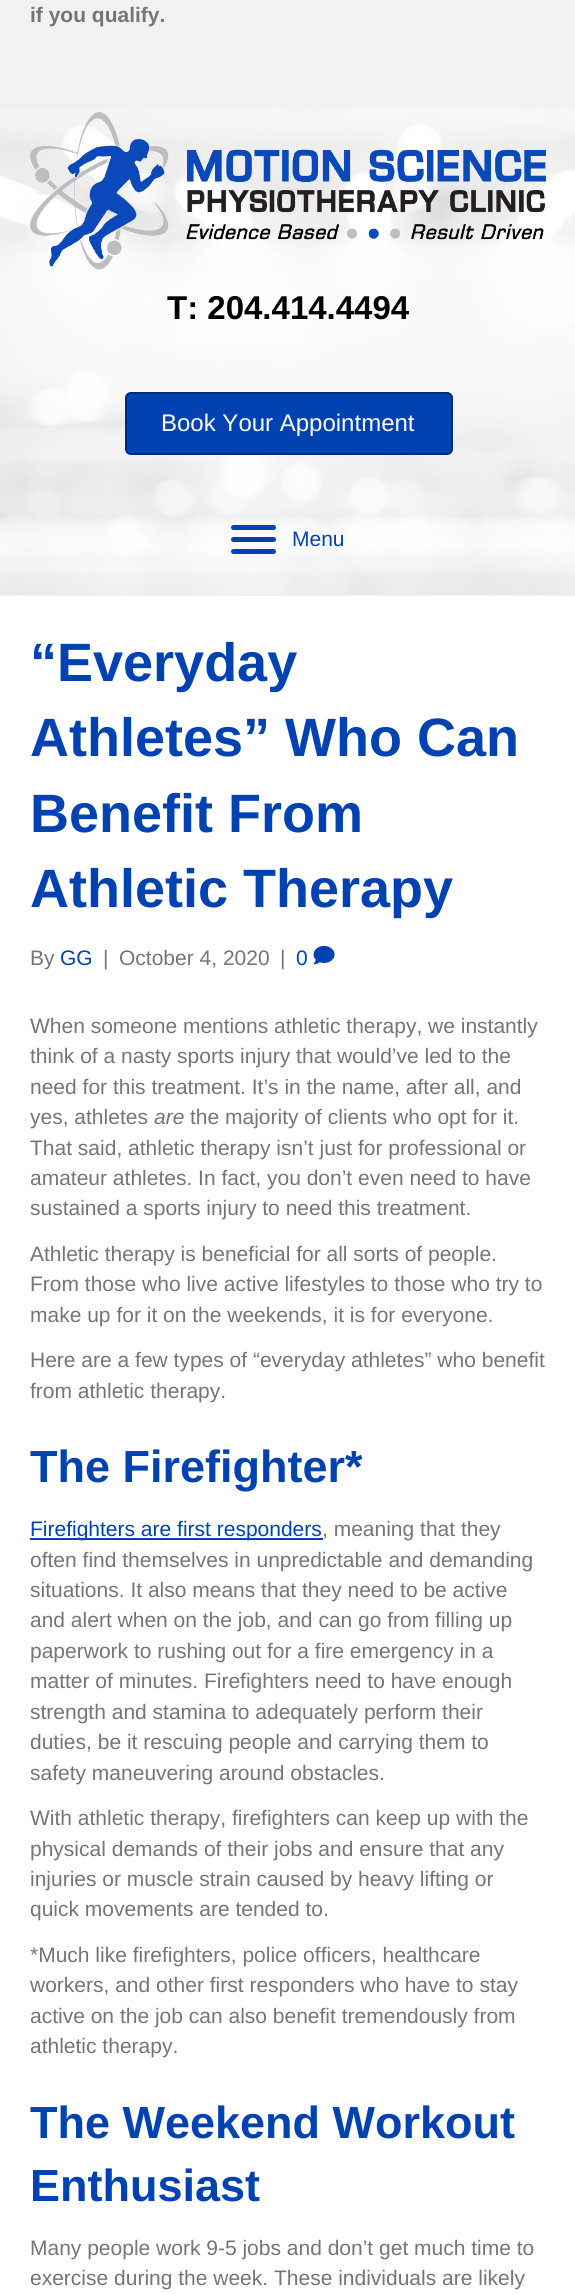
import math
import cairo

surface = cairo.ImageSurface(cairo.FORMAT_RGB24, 575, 2294)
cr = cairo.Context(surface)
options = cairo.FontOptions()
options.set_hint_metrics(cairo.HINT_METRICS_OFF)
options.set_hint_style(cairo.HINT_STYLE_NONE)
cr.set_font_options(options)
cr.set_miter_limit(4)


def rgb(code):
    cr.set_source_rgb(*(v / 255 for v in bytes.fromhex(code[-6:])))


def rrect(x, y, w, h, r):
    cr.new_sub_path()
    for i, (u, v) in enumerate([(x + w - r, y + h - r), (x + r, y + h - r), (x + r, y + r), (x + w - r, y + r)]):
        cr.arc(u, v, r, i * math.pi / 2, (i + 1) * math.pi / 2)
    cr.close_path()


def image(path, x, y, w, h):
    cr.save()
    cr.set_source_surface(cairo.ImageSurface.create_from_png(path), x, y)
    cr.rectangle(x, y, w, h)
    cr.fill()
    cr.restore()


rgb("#f2f2f2")
cr.paint()
image("img/1.png", 0, 104, 575, 491)
image("img/2.png", 30, 112, 516, 158)
rgb("#0042b2")
rrect(126, 393, 326, 61, 5)
cr.fill_preserve()
rgb("#002b75")
cr.stroke()
rgb("#0042b3")
rrect(231, 537, 45, 5, 2.5)
cr.fill()
rrect(231, 525, 45, 5, 2.5)
cr.fill()
rrect(231, 549, 45, 5, 2.5)
cr.fill()
rgb("#ffffff")
cr.rectangle(0, 596, 575, 1698)
cr.fill()
image("img/3.png", 313, 945, 22, 20)
rgb("#0042b2")
cr.rectangle(30, 1538, 293, 2)
cr.fill()
cr.select_font_face("Liberation Sans", cairo.FONT_SLANT_NORMAL, cairo.FONT_WEIGHT_BOLD)
cr.set_font_size(21)
rgb("#757575")
cr.move_to(30, 22)
cr.show_text("if you qualify.")
cr.set_font_size(33)
rgb("#000000")
cr.move_to(167, 319)
cr.show_text("T: 204.414.4494")
cr.select_font_face("Liberation Sans")
cr.set_font_size(24)
rgb("#ffffff")
cr.move_to(161, 431)
cr.show_text("Book Your Appointment")
cr.set_font_size(21)
rgb("#0042b2")
cr.move_to(292, 546)
cr.show_text("Menu")
cr.select_font_face("Liberation Sans", cairo.FONT_SLANT_NORMAL, cairo.FONT_WEIGHT_BOLD)
cr.set_font_size(54)
for x, y, s in [
    (30, 681, "“Everyday"),
    (30, 756, "Athletes” Who Can"),
    (30, 832, "Benefit From"),
    (30, 907, "Athletic Therapy"),
]:
    cr.move_to(x, y)
    cr.show_text(s)
cr.select_font_face("Liberation Sans")
cr.set_font_size(21)
rgb("#757575")
cr.move_to(30, 965)
cr.show_text("By")
rgb("#0042b2")
cr.move_to(60, 965)
cr.show_text("GG")
rgb("#757575")
for x, y, s in [
    (103, 965, "|"),
    (119, 965, "October 4, 2020"),
    (280, 965, "|"),
]:
    cr.move_to(x, y)
    cr.show_text(s)
rgb("#0042b2")
cr.move_to(296, 965)
cr.show_text("0")
rgb("#757575")
for x, y, s in [
    (30, 1033, "When someone mentions athletic therapy, we instantly"),
    (30, 1063, "think of a nasty sports injury that would’ve led to the"),
    (30, 1094, "need for this treatment. It’s in the name, after all, and"),
    (30, 1124, "yes, athletes"),
]:
    cr.move_to(x, y)
    cr.show_text(s)
cr.select_font_face("Liberation Sans", cairo.FONT_SLANT_ITALIC)
cr.move_to(154, 1124)
cr.show_text("are")
cr.select_font_face("Liberation Sans")
for x, y, s in [
    (190, 1124, "the majority of clients who opt for it."),
    (30, 1155, "That said, athletic therapy isn’t just for professional or"),
    (30, 1185, "amateur athletes. In fact, you don’t even need to have"),
    (30, 1215, "sustained a sports injury to need this treatment."),
    (30, 1261, "Athletic therapy is beneficial for all sorts of people."),
    (30, 1291, "From those who live active lifestyles to those who try to"),
    (30, 1322, "make up for it on the weekends, it is for everyone."),
    (30, 1367, "Here are a few types of “everyday athletes” who benefit"),
    (30, 1398, "from athletic therapy."),
]:
    cr.move_to(x, y)
    cr.show_text(s)
cr.select_font_face("Liberation Sans", cairo.FONT_SLANT_NORMAL, cairo.FONT_WEIGHT_BOLD)
cr.set_font_size(45)
rgb("#0042b2")
cr.move_to(30, 1482)
cr.show_text("The Firefighter*")
cr.select_font_face("Liberation Sans")
cr.set_font_size(21)
cr.move_to(30, 1536)
cr.show_text("Firefighters are first responders")
rgb("#757575")
for x, y, s in [
    (322, 1536, ", meaning that they"),
    (30, 1567, "often find themselves in unpredictable and demanding"),
    (30, 1597, "situations. It also means that they need to be active"),
    (30, 1627, "and alert when on the job, and can go from filling up"),
    (30, 1658, "paperwork to rushing out for a fire emergency in a"),
    (30, 1688, "matter of minutes. Firefighters need to have enough"),
    (30, 1719, "strength and stamina to adequately perform their"),
    (30, 1749, "duties, be it rescuing people and carrying them to"),
    (30, 1780, "safety maneuvering around obstacles."),
    (30, 1825, "With athletic therapy, firefighters can keep up with the"),
    (30, 1856, "physical demands of their jobs and ensure that any"),
    (30, 1886, "injuries or muscle strain caused by heavy lifting or"),
    (30, 1916, "quick movements are tended to."),
    (30, 1962, "*Much like firefighters, police officers, healthcare"),
    (30, 1992, "workers, and other first responders who have to stay"),
    (30, 2023, "active on the job can also benefit tremendously from"),
    (30, 2053, "athletic therapy."),
]:
    cr.move_to(x, y)
    cr.show_text(s)
cr.select_font_face("Liberation Sans", cairo.FONT_SLANT_NORMAL, cairo.FONT_WEIGHT_BOLD)
cr.set_font_size(45)
rgb("#0042b2")
cr.move_to(30, 2138)
cr.show_text("The Weekend Workout")
cr.move_to(30, 2201)
cr.show_text("Enthusiast")
cr.select_font_face("Liberation Sans")
cr.set_font_size(21)
rgb("#757575")
cr.move_to(30, 2255)
cr.show_text("Many people work 9-5 jobs and don’t get much time to")
cr.move_to(30, 2285)
cr.show_text("exercise during the week. These individuals are likely")
surface.write_to_png("page.png")
